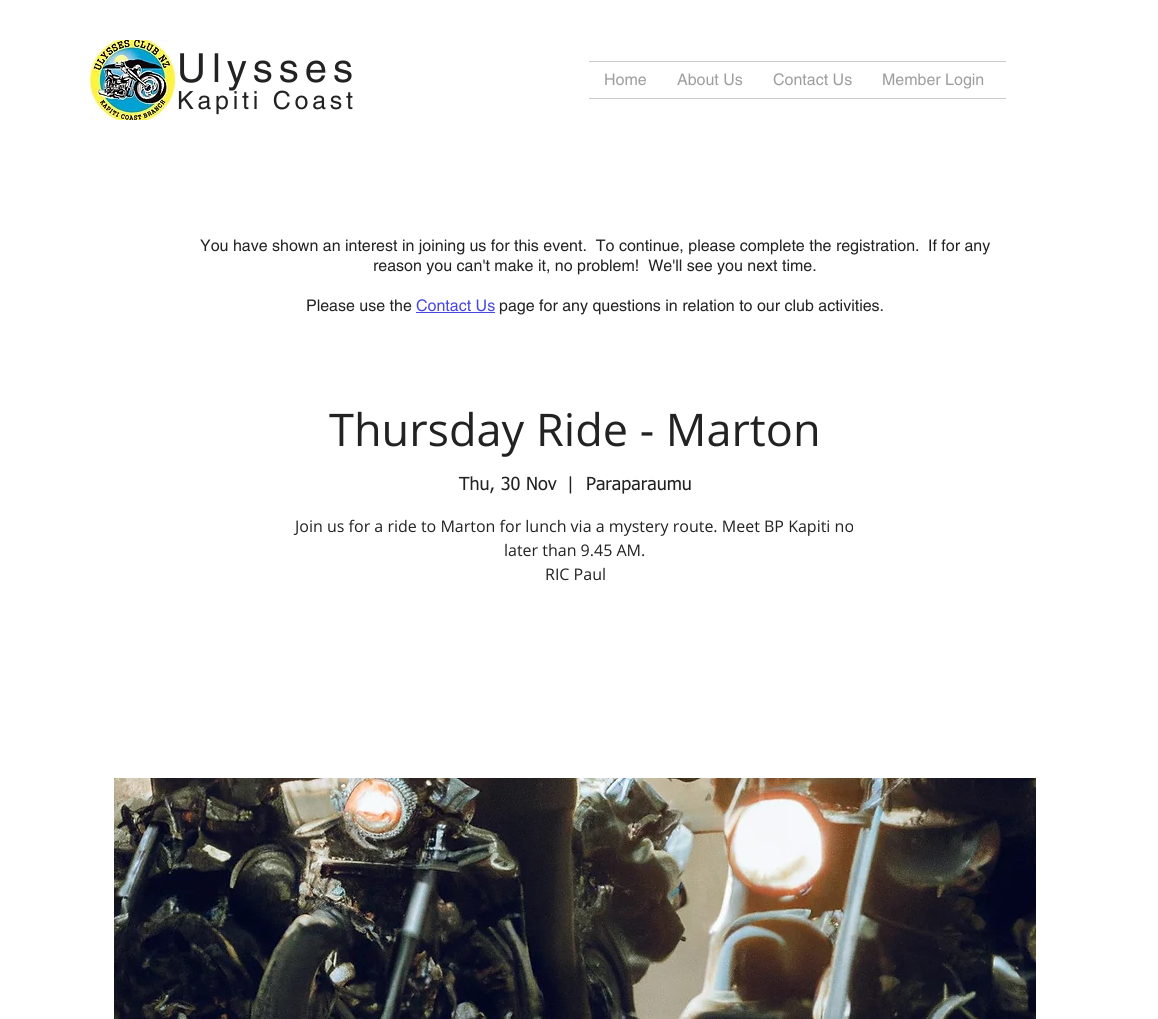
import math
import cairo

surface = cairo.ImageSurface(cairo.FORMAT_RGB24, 1158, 1019)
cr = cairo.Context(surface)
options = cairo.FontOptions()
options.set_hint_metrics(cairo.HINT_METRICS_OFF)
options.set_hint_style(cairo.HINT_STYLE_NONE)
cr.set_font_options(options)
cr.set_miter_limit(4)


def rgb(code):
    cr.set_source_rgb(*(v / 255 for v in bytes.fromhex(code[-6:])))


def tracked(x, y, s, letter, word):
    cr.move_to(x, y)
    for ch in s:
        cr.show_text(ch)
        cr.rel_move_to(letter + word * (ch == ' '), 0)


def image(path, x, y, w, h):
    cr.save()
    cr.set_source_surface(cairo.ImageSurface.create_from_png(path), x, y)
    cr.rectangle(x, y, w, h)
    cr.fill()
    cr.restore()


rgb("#ffffff")
cr.paint()
image("img/1.png", 89, 40, 87, 80)
for x, y, w, h, color in [
    (589, 61, 417, 1, "#cacaca"),
    (589, 98, 417, 1, "#cacaca"),
    (416, 312, 79, 1, "#4846e0"),
]:
    rgb(color)
    cr.rectangle(x, y, w, h)
    cr.fill()
image("img/2.png", 114, 778, 922, 241)
cr.select_font_face("helvetica")
cr.set_font_size(40)
rgb("#222222")
tracked(177, 82, "Ulysses", 6, 0)
cr.set_font_size(25)
tracked(177, 109, "Kapiti Coast", 3.75, 0)
cr.set_font_size(16)
rgb("#9e9e9e")
for x, y, s in [
    (604, 85, "Home"),
    (677, 85, "About Us"),
    (773, 85, "Contact Us"),
    (882, 85, "Member Login"),
]:
    cr.move_to(x, y)
    cr.show_text(s)
rgb("#222222")
for x, y, s in [
    (200, 251, "You have shown an interest in joining us for this event.  To continue, please complete the registration."),
    (928, 251, "If for any"),
    (373, 271, "reason you can't make it, no problem!  We'll see you next time."),
    (306, 311, "Please use the"),
]:
    cr.move_to(x, y)
    cr.show_text(s)
rgb("#4846e0")
cr.move_to(416, 311)
cr.show_text("Contact Us")
rgb("#222222")
cr.move_to(499, 311)
cr.show_text("page for any questions in relation to our club activities.")
cr.select_font_face("Open Sans")
cr.set_font_size(45)
cr.move_to(329, 446)
cr.show_text("Thursday Ride - Marton")
cr.select_font_face("tahoma")
cr.set_font_size(18)
for x, y, s in [
    (459, 490, "Thu, 30 Nov"),
    (567, 490, "|"),
    (586, 490, "Paraparaumu"),
]:
    cr.move_to(x, y)
    cr.show_text(s)
cr.select_font_face("Open Sans")
cr.set_font_size(16)
for x, y, s in [
    (295, 532, "Join us for a ride to Marton for lunch via a mystery route. Meet BP Kapiti no"),
    (504, 556, "later than 9.45 AM."),
    (545, 580, "RIC Paul"),
]:
    cr.move_to(x, y)
    cr.show_text(s)
surface.write_to_png("page.png")
